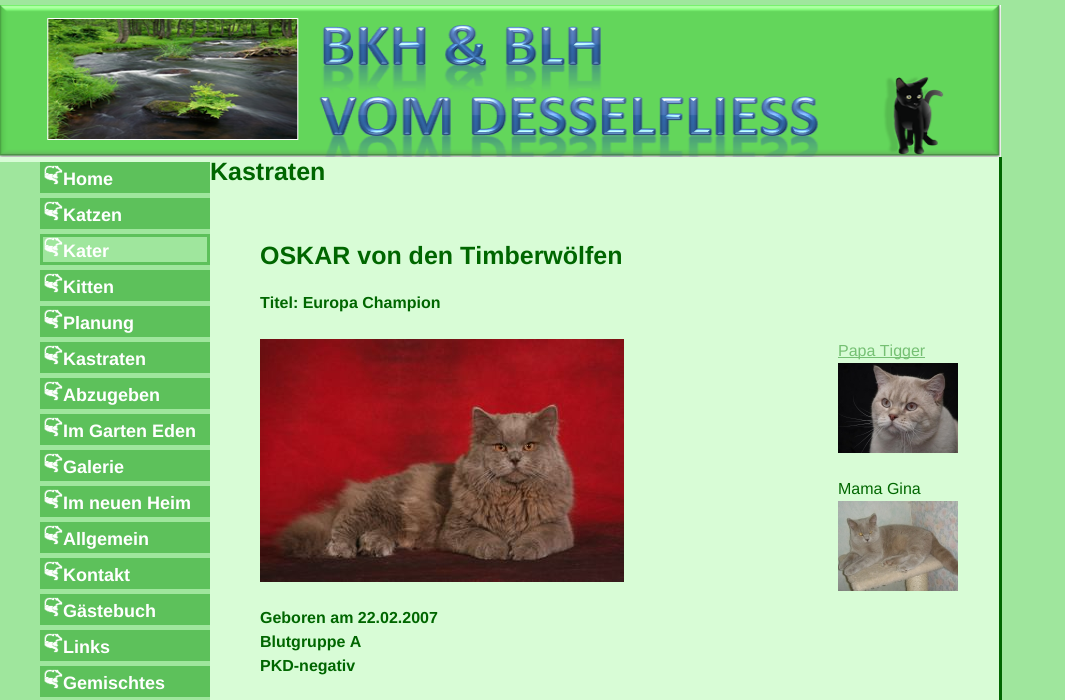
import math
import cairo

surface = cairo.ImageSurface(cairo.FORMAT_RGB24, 1065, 700)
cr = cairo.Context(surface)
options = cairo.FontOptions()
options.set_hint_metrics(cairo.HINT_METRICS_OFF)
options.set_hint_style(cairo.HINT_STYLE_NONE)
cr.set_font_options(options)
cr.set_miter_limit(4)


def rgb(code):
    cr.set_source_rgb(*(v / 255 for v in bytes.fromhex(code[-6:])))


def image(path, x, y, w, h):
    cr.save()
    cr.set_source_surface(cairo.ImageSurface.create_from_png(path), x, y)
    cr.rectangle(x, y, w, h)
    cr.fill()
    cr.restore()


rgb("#9fe69d")
cr.paint()
image("img/1.png", 0, 5, 1001, 152)
rgb("#d8fcd6")
cr.rectangle(0, 157, 210, 5)
cr.fill()
rgb("#5dc15b")
cr.rectangle(40, 162, 170, 31)
cr.fill()
image("img/2.png", 44, 165, 19, 20)
cr.rectangle(40, 198, 170, 31)
cr.fill()
image("img/2.png", 44, 201, 19, 20)
cr.rectangle(40, 234, 170, 31)
cr.fill()
rgb("#9fe69d")
cr.rectangle(43, 237, 164, 25)
cr.fill()
image("img/3.png", 44, 237, 19, 20)
rgb("#5dc15b")
cr.rectangle(40, 270, 170, 31)
cr.fill()
image("img/2.png", 44, 273, 19, 20)
cr.rectangle(40, 306, 170, 31)
cr.fill()
image("img/2.png", 44, 309, 19, 20)
cr.rectangle(40, 342, 170, 31)
cr.fill()
image("img/2.png", 44, 345, 19, 20)
cr.rectangle(40, 378, 170, 31)
cr.fill()
image("img/2.png", 44, 381, 19, 20)
cr.rectangle(40, 414, 170, 31)
cr.fill()
image("img/2.png", 44, 417, 19, 20)
cr.rectangle(40, 450, 170, 31)
cr.fill()
image("img/2.png", 44, 453, 19, 20)
cr.rectangle(40, 486, 170, 31)
cr.fill()
image("img/2.png", 44, 489, 19, 20)
cr.rectangle(40, 522, 170, 31)
cr.fill()
image("img/2.png", 44, 525, 19, 20)
cr.rectangle(40, 558, 170, 31)
cr.fill()
image("img/2.png", 44, 561, 19, 20)
cr.rectangle(40, 594, 170, 31)
cr.fill()
image("img/2.png", 44, 597, 19, 20)
cr.rectangle(40, 630, 170, 31)
cr.fill()
image("img/2.png", 44, 633, 19, 20)
cr.rectangle(40, 666, 170, 31)
cr.fill()
image("img/2.png", 44, 669, 19, 20)
rgb("#d8fcd6")
cr.rectangle(210, 157, 789, 543)
cr.fill()
rgb("#006600")
cr.rectangle(999, 157, 3, 543)
cr.fill()
image("img/4.png", 260, 339, 364, 243)
rgb("#75c073")
cr.rectangle(838, 357, 87, 1)
cr.fill()
image("img/5.png", 838, 363, 120, 90)
image("img/6.png", 838, 501, 120, 90)
cr.select_font_face("Liberation Sans", cairo.FONT_SLANT_NORMAL, cairo.FONT_WEIGHT_BOLD)
cr.set_font_size(18)
rgb("#ffffff")
for x, y, s in [
    (63, 185, "Home"),
    (63, 221, "Katzen"),
    (63, 257, "Kater"),
    (63, 293, "Kitten"),
    (63, 329, "Planung"),
    (63, 365, "Kastraten"),
    (63, 401, "Abzugeben"),
    (63, 437, "Im Garten Eden"),
    (63, 473, "Galerie"),
    (63, 509, "Im neuen Heim"),
    (63, 545, "Allgemein"),
    (63, 581, "Kontakt"),
    (63, 617, "Gästebuch"),
    (63, 653, "Links"),
    (63, 689, "Gemischtes"),
]:
    cr.move_to(x, y)
    cr.show_text(s)
cr.set_font_size(25)
rgb("#006600")
cr.move_to(210, 180)
cr.show_text("Kastraten")
cr.move_to(260, 264)
cr.show_text("OSKAR von den Timberwölfen")
cr.set_font_size(16)
for x, y, s in [
    (260, 308, "Titel: Europa Champion"),
    (260, 623, "Geboren am 22.02.2007"),
    (260, 647, "Blutgruppe A"),
    (260, 671, "PKD-negativ"),
]:
    cr.move_to(x, y)
    cr.show_text(s)
cr.select_font_face("Liberation Sans")
rgb("#75c073")
cr.move_to(838, 356)
cr.show_text("Papa Tigger")
rgb("#006600")
cr.move_to(838, 494)
cr.show_text("Mama Gina")
surface.write_to_png("page.png")
